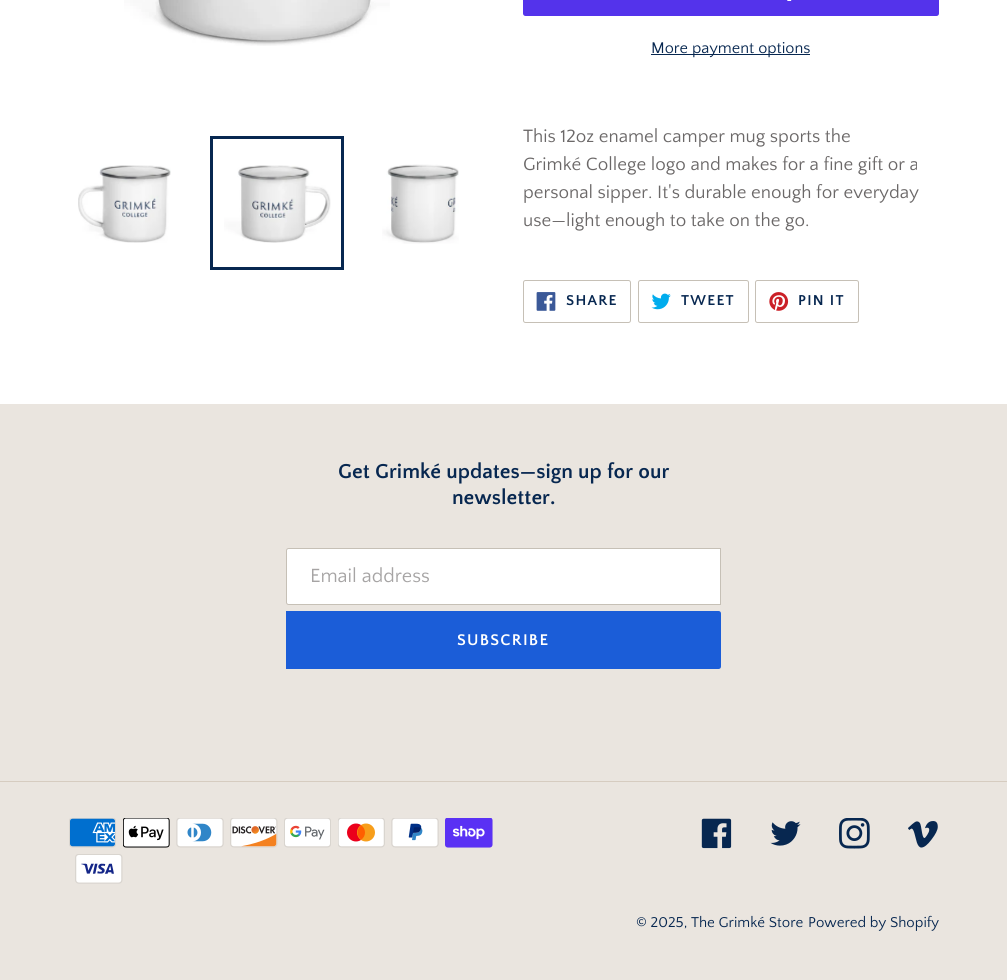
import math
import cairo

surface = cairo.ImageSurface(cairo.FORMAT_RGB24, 1007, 980)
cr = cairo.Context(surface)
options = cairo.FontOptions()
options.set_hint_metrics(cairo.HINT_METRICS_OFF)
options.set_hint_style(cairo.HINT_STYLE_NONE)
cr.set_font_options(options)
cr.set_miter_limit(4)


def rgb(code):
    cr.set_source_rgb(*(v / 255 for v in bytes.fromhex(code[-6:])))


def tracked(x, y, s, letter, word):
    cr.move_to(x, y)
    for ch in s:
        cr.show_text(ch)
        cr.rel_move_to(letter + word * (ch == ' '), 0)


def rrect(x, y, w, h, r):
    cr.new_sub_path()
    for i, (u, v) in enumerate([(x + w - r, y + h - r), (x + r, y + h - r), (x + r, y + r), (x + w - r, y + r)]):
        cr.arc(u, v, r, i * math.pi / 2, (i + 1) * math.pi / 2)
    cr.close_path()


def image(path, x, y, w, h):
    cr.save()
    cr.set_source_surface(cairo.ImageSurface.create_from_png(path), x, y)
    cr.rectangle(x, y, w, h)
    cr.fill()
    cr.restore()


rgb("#ffffff")
cr.paint()
image("img/1.png", 124, 0, 266, 46)
image("img/2.png", 78, 165, 93, 78)
cr.rectangle(211.5, 137.5, 131, 131)
rgb("#072750")
cr.set_line_width(3)
cr.stroke()
image("img/3.png", 224, 165, 107, 78)
image("img/4.png", 382, 164, 77, 80)
rgb("#5433eb")
rrect(523, -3, 416, 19, 2.5)
cr.fill()
image("img/5.png", 787, 0, 5, 1)
rgb("#072750")
cr.rectangle(651, 54, 159, 1)
cr.fill()
rrect(523.5, 280.5, 107, 42, 2)
rgb("#c6c0b6")
cr.set_line_width(1)
cr.stroke()
image("img/6.png", 536, 292, 20, 19)
rrect(638.5, 280.5, 110, 42, 2)
cr.stroke()
image("img/7.png", 651, 293, 20, 17)
rrect(755.5, 280.5, 103, 42, 2)
cr.stroke()
image("img/8.png", 769, 292, 20, 19)
rgb("#eae5df")
cr.rectangle(0, 404, 1007, 576)
cr.fill()
rgb("#ffffff")
cr.new_path()
cr.move_to(288.5, 548.5)
cr.line_to(720.5, 548.5)
cr.line_to(720.5, 604.5)
cr.line_to(288.5, 604.5)
cr.curve_to(287.5, 604.5, 286.5, 603.5, 286.5, 602.5)
cr.line_to(286.5, 550.5)
cr.curve_to(286.5, 549.5, 287.5, 548.5, 288.5, 548.5)
cr.close_path()
cr.fill_preserve()
rgb("#c6c0b6")
cr.stroke()
rgb("#1b5dd8")
cr.new_path()
cr.move_to(286, 611)
cr.line_to(718.5, 611)
cr.curve_to(720, 611, 721, 612, 721, 613.5)
cr.line_to(721, 666.5)
cr.curve_to(721, 668, 720, 669, 718.5, 669)
cr.line_to(286, 669)
cr.close_path()
cr.fill()
rgb("#d6ccc0")
cr.rectangle(0, 781, 1007, 1)
cr.fill()
image("img/9.png", 69, 818, 47, 30)
image("img/10.png", 123, 818, 47, 30)
image("img/11.png", 176, 818, 48, 30)
image("img/12.png", 230, 818, 48, 30)
image("img/13.png", 284, 818, 47, 30)
image("img/14.png", 338, 818, 47, 30)
image("img/15.png", 391, 818, 48, 30)
image("img/16.png", 445, 818, 48, 30)
image("img/17.png", 75, 854, 48, 30)
image("img/18.png", 701, 818, 31, 31)
image("img/19.png", 770, 821, 31, 25)
image("img/20.png", 839, 818, 31, 31)
image("img/21.png", 908, 821, 30, 27)
cr.select_font_face("Quattrocento Sans")
cr.set_font_size(16.25)
rgb("#072750")
cr.move_to(651, 53)
cr.show_text("More payment options")
cr.set_font_size(18.75)
rgb("#6b6868")
for x, y, s in [
    (523, 142, "This 12oz enamel camper mug sports the"),
    (523, 170, "Grimké College logo and makes for a fine gift or a"),
    (523, 198, "personal sipper. It's durable enough for everyday"),
    (523, 226, "use—light enough to take on the go."),
]:
    cr.move_to(x, y)
    cr.show_text(s)
cr.select_font_face("Quattrocento Sans", cairo.FONT_SLANT_NORMAL, cairo.FONT_WEIGHT_BOLD)
cr.set_font_size(15)
rgb("#072750")
for x, y, s in [
    (566, 305, "SHARE"),
    (681, 305, "TWEET"),
    (798, 305, "PIN IT"),
]:
    tracked(x, y, s, 1.25, 0)
cr.set_font_size(21.25)
cr.move_to(338, 478)
cr.show_text("Get Grimké updates—sign up for our")
cr.move_to(452, 504)
cr.show_text("newsletter.")
cr.select_font_face("Quattrocento Sans")
cr.set_font_size(20)
rgb("#a6a4a4")
cr.move_to(310, 582)
cr.show_text("Email address")
cr.select_font_face("Quattrocento Sans", cairo.FONT_SLANT_NORMAL, cairo.FONT_WEIGHT_BOLD)
cr.set_font_size(16.25)
rgb("#ffffff")
tracked(457, 645, "SUBSCRIBE", 1.25, 0)
cr.select_font_face("Quattrocento Sans")
cr.set_font_size(15)
rgb("#072750")
cr.move_to(636, 927)
cr.show_text("© 2025, The Grimké Store")
cr.move_to(808, 927)
cr.show_text("Powered by Shopify")
surface.write_to_png("page.png")
